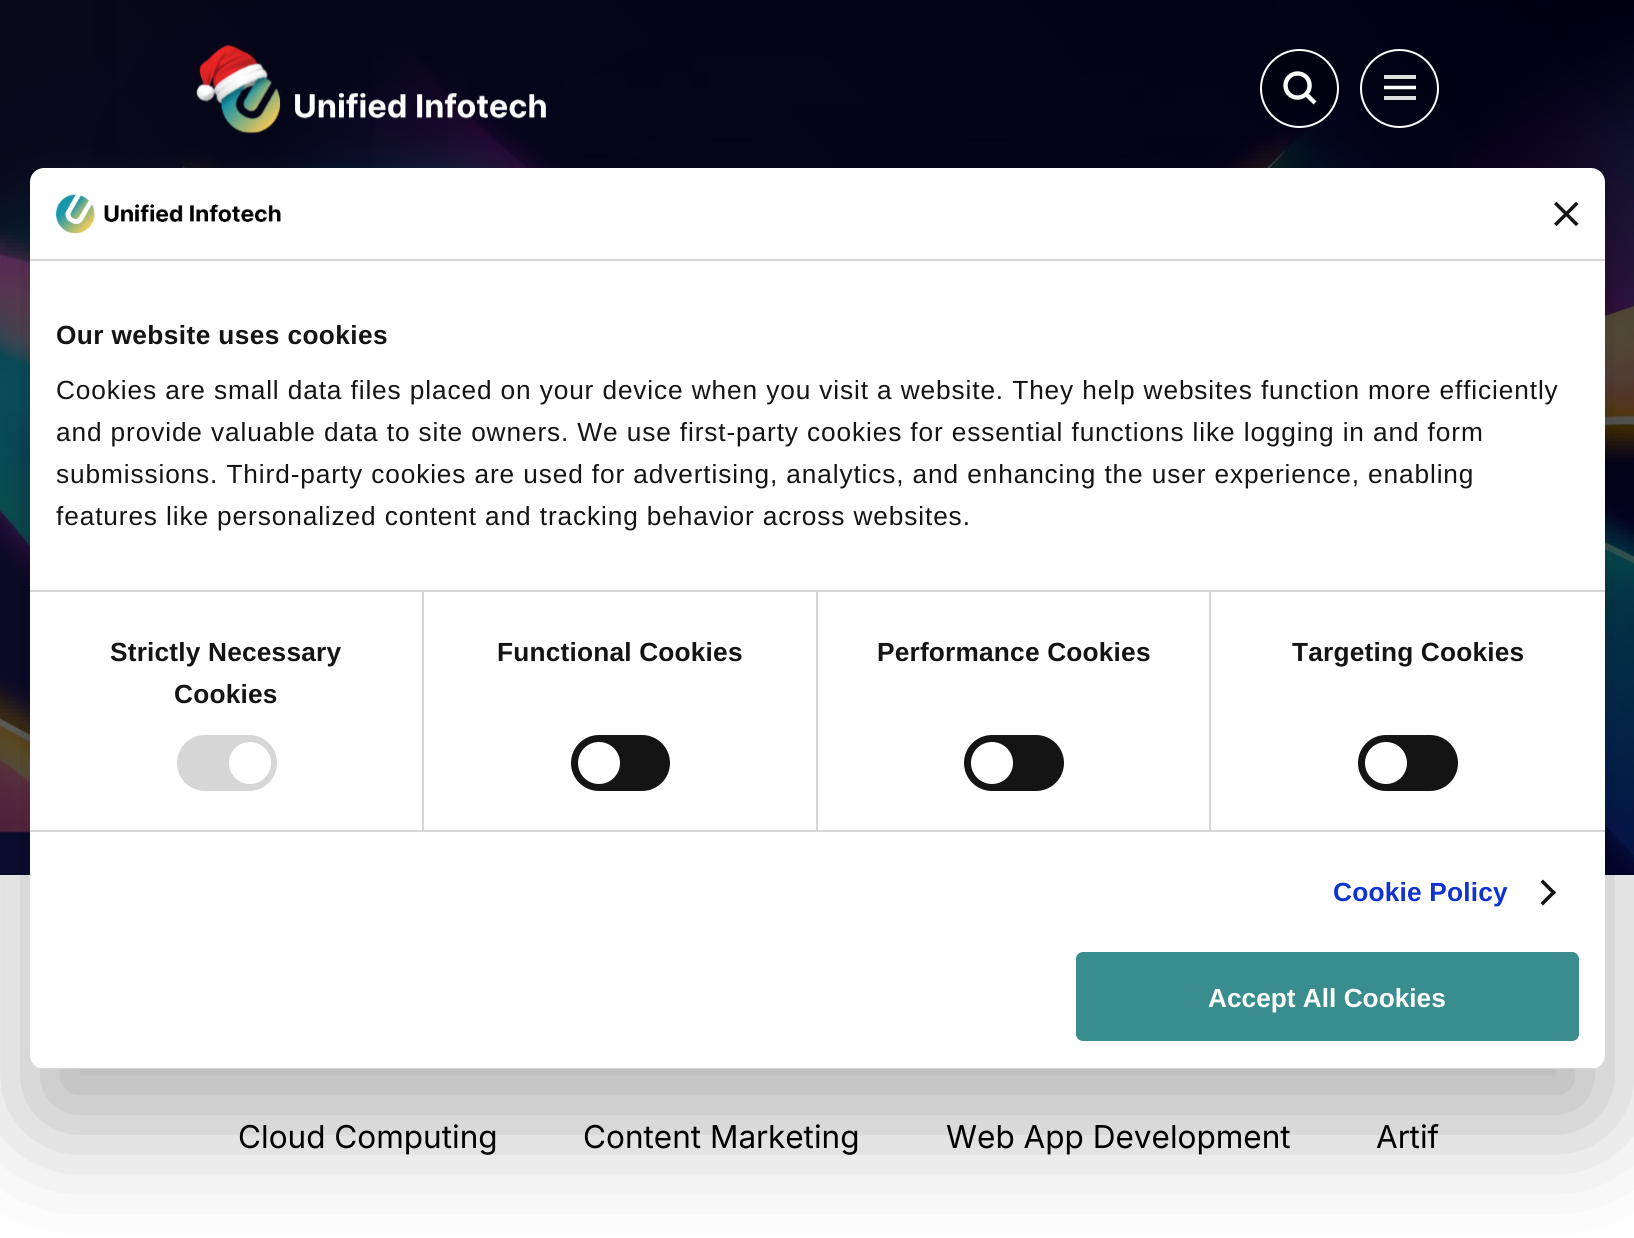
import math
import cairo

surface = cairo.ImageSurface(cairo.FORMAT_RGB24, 1634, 1238)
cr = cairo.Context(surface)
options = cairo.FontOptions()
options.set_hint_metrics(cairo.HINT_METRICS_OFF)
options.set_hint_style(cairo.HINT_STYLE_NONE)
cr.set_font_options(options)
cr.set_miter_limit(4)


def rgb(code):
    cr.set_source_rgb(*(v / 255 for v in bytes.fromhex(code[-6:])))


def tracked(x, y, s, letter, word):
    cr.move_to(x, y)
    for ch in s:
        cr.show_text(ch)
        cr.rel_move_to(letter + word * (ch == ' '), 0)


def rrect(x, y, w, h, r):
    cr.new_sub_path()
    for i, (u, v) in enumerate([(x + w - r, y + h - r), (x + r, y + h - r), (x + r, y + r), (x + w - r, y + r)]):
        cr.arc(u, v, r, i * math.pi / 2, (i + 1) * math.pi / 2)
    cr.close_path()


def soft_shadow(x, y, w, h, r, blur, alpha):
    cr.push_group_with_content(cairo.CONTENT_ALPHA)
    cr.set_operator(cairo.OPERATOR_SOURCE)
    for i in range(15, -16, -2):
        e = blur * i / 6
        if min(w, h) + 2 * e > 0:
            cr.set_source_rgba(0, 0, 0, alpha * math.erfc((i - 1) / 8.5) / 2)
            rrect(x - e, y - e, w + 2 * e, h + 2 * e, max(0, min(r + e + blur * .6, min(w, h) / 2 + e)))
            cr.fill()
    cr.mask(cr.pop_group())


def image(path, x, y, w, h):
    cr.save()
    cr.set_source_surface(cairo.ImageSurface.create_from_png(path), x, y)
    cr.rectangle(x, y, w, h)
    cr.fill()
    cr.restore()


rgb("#ffffff")
cr.paint()
gradient = cairo.LinearGradient(122, 1021, 1512, -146)
gradient.add_color_stop_rgba(0, 0.114, 0.114, 0.114, 1)
gradient.add_color_stop_rgba(1, 0, 0, 0, 1)
cr.set_source(gradient)
cr.rectangle(0, 0, 1634, 875)
cr.fill()
gradient = cairo.RadialGradient(817, 438, 0, 817, 438, 927)
gradient.add_color_stop_rgba(0, 0, 0, 0, 0.5)
gradient.add_color_stop_rgba(1, 0, 0, 0, 0)
cr.set_source(gradient)
cr.rectangle(93, 0, 1183, 838)
cr.fill()
gradient = cairo.LinearGradient(0, 438, 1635, 437)
gradient.add_color_stop_rgba(0, 0, 0, 0, 0.15)
gradient.add_color_stop_rgba(1, 0, 0, 0, 0)
cr.set_source(gradient)
cr.rectangle(0, 0, 448, 875)
cr.fill()
image("img/3.png", 0, 0, 1634, 875)
image("img/4.png", 196, 44, 350, 90)
cr.set_source_rgba(0, 0, 0, 0.26)
cr.arc(1299.5, 88.5, 38.5, 0, 2 * math.pi)
cr.fill_preserve()
rgb("#ffffff")
cr.stroke()
image("img/5.png", 1283, 71, 34, 34)
cr.arc(1399.5, 88.5, 38.5, 0, 2 * math.pi)
cr.stroke()
rgb("#dfdfe2")
cr.rectangle(1384, 75, 32, 4)
cr.fill()
cr.new_path()
cr.move_to(1384, 87.5)
cr.line_to(1416, 87.5)
rgb("#ffffff")
cr.set_line_width(3.5)
cr.stroke()
rgb("#dfdfe2")
cr.rectangle(1384, 96, 32, 4)
cr.fill()
rgb("#000000")
soft_shadow(30, 224, 1575, 901, 14, 59.5, 0.3)
rgb("#ffffff")
rrect(30, 168, 1575, 901, 14)
cr.fill()
rgb("#d6d6d6")
cr.rectangle(30, 259, 1575, 2)
cr.fill()
image("img/1.png", 56, 194, 225, 40)
image("img/2.png", 1554, 201, 25, 25)
for x, y, w, h, color in [
    (30, 590, 1575, 2, "#d6d6d6"),
    (30, 830, 1575, 2, "#d6d6d6"),
    (422, 592, 2, 238, "#d6d6d6"),
]:
    rgb(color)
    cr.rectangle(x, y, w, h)
    cr.fill()
rrect(177, 735, 100, 56, 28)
cr.fill()
rgb("#ffffff")
cr.arc(250, 763, 21, 0, 2 * math.pi)
cr.fill()
rgb("#d6d6d6")
cr.rectangle(816, 592, 2, 238)
cr.fill()
rgb("#141414")
rrect(571, 735, 99, 56, 28)
cr.fill()
rgb("#ffffff")
cr.arc(599, 763, 21, 0, 2 * math.pi)
cr.fill()
rgb("#d6d6d6")
cr.rectangle(1209, 592, 2, 238)
cr.fill()
rgb("#141414")
rrect(964, 735, 100, 56, 28)
cr.fill()
rgb("#ffffff")
cr.arc(992, 763, 21, 0, 2 * math.pi)
cr.fill()
rgb("#141414")
rrect(1358, 735, 100, 56, 28)
cr.fill()
rgb("#ffffff")
cr.arc(1386, 763, 21, 0, 2 * math.pi)
cr.fill()
rgb("#141414")
cr.new_path()
cr.move_to(1543, 879.5)
cr.line_to(1556, 892.5)
cr.line_to(1553.5, 895)
cr.line_to(1540.5, 882)
cr.close_path()
cr.fill()
cr.new_path()
cr.move_to(1553.5, 890)
cr.line_to(1556, 892.5)
cr.line_to(1543, 905.5)
cr.line_to(1540.5, 903)
cr.close_path()
cr.fill()
cr.save()
rrect(30, 168, 1575, 901, 14)
cr.clip()
rgb("#d6d6d6")
cr.rectangle(39, 1068, 1557, 1)
cr.fill()
cr.restore()
rgb("#398d8e")
rrect(1078, 954, 499, 85, 5)
cr.fill_preserve()
cr.set_line_width(4)
cr.stroke()
cr.select_font_face("Liberation Sans", cairo.FONT_SLANT_NORMAL, cairo.FONT_WEIGHT_BOLD)
cr.set_font_size(26.25)
rgb("#141414")
tracked(56, 344, "Our website uses cookies", 0.4, 0)
cr.select_font_face("Liberation Sans")
for x, y, s in [
    (56, 399, "Cookies are small data files placed on your device when you visit a website. They help websites function more efficiently"),
    (56, 441, "and provide valuable data to site owners. We use first-party cookies for essential functions like logging in and form"),
    (56, 483, "submissions. Third-party cookies are used for advertising, analytics, and enhancing the user experience, enabling"),
    (56, 525, "features like personalized content and tracking behavior across websites."),
]:
    tracked(x, y, s, 0.88, 0)
cr.select_font_face("Liberation Sans", cairo.FONT_SLANT_NORMAL, cairo.FONT_WEIGHT_BOLD)
for x, y, s in [
    (110, 661, "Strictly Necessary"),
    (174, 703, "Cookies"),
    (497, 661, "Functional Cookies"),
    (877, 661, "Performance Cookies"),
    (1292, 661, "Targeting Cookies"),
]:
    tracked(x, y, s, 0.2, 0)
rgb("#1032cf")
tracked(1333, 901, "Cookie Policy", 0.2, 0)
rgb("#ffffff")
cr.move_to(1208, 1007)
cr.show_text("Accept All Cookies")
cr.select_font_face("Inter")
cr.set_font_size(31.5)
rgb("#000000")
for x, y, s in [
    (238, 1148, "Cloud Computing"),
    (583, 1148, "Content Marketing"),
    (946, 1148, "Web App Development"),
    (1376, 1148, "Artif"),
]:
    cr.move_to(x, y)
    cr.show_text(s)
surface.write_to_png("page.png")
